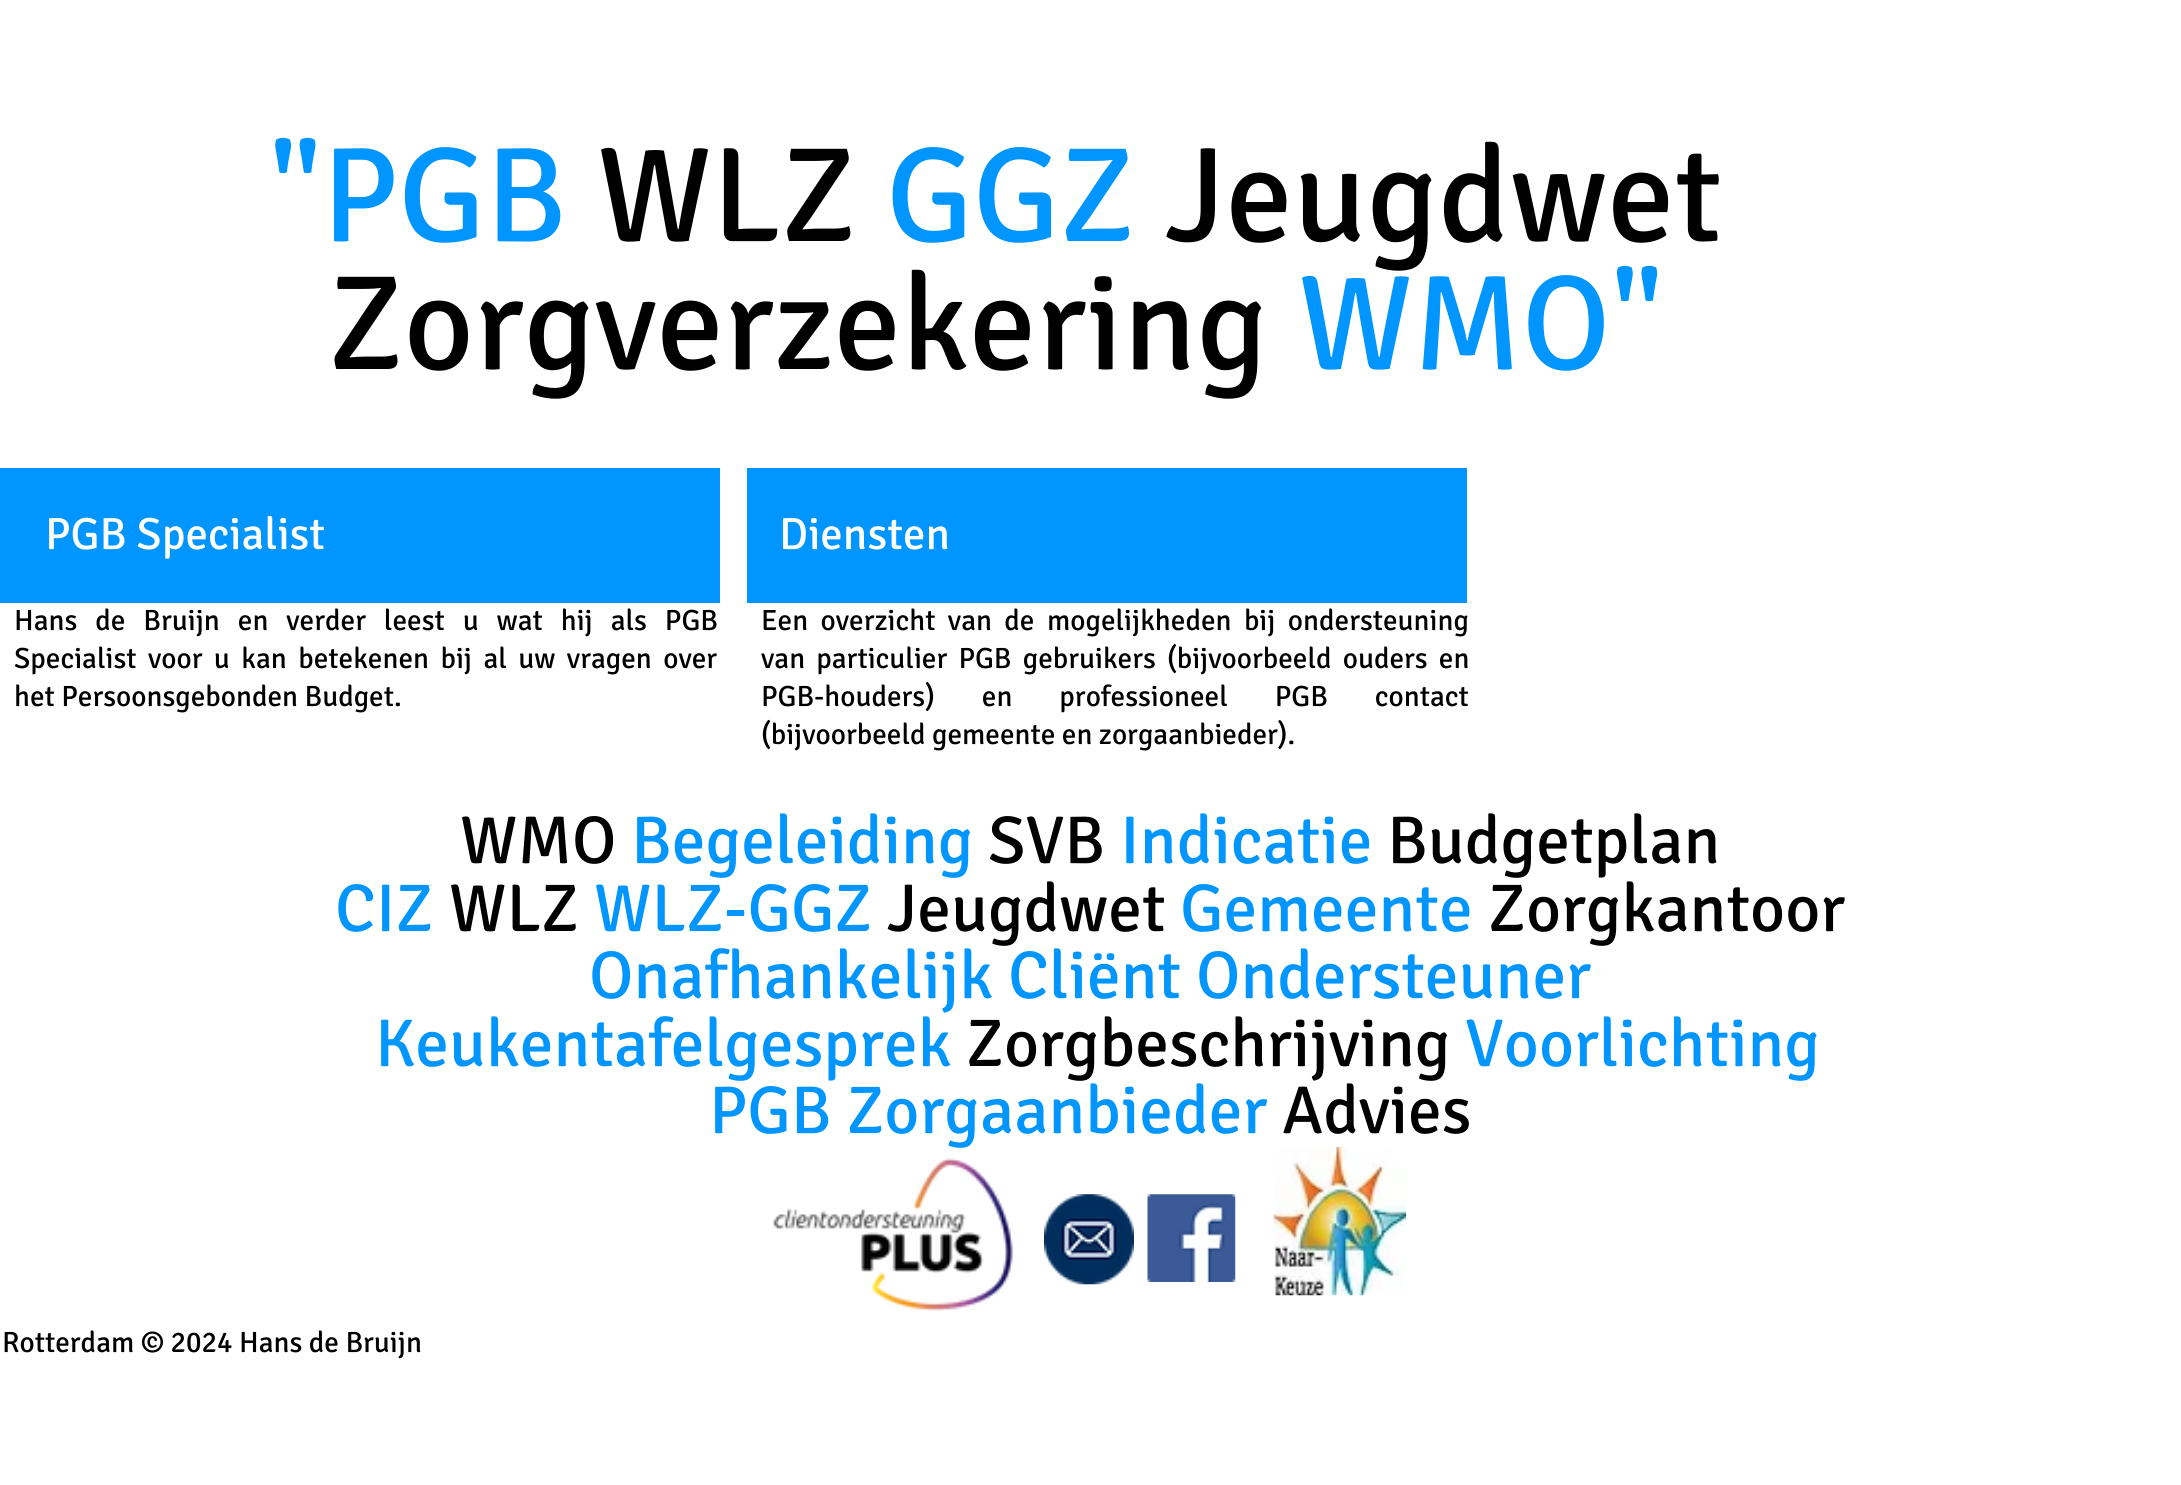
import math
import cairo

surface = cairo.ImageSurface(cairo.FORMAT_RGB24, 2181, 1485)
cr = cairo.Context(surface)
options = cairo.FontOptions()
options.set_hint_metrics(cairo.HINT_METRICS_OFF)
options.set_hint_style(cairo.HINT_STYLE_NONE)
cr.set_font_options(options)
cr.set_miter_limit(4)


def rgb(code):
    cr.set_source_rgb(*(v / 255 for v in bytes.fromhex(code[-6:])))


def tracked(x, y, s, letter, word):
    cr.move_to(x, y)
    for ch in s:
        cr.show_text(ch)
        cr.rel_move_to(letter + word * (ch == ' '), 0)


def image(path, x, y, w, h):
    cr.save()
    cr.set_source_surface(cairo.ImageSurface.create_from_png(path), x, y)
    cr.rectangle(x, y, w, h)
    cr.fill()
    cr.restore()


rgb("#ffffff")
cr.paint()
rgb("#0095ff")
cr.rectangle(0, 468, 720, 135)
cr.fill()
cr.rectangle(747, 468, 720, 135)
cr.fill()
image("img/1.png", 773, 1157, 241, 155)
image("img/2.png", 1044, 1194, 90, 91)
image("img/3.png", 1147, 1194, 89, 88)
image("img/4.png", 1273, 1147, 134, 149)
cr.select_font_face("Signika")
cr.set_font_size(135)
cr.move_to(269, 241)
cr.show_text("\"PGB")
rgb("#000000")
cr.move_to(597, 241)
cr.show_text("WLZ")
rgb("#0095ff")
cr.move_to(886, 241)
cr.show_text("GGZ")
rgb("#000000")
cr.move_to(1165, 241)
cr.show_text("Jeugdwet")
cr.move_to(328, 369)
cr.show_text("Zorgverzekering")
rgb("#0095ff")
cr.move_to(1298, 369)
cr.show_text("WMO\"")
cr.set_font_size(45)
rgb("#ffffff")
cr.move_to(45, 549)
cr.show_text("PGB Specialist")
cr.move_to(779, 549)
cr.show_text("Diensten")
cr.set_font_size(29.25)
rgb("#000000")
tracked(14, 630, "Hans de Bruijn en verder leest u wat hij als PGB", 0, 11.5)
tracked(14, 668, "Specialist voor u kan betekenen bij al uw vragen over", 0, 5)
cr.move_to(14, 706)
cr.show_text("het Persoonsgebonden Budget.")
tracked(761, 630, "Een overzicht van de mogelijkheden bij ondersteuning", 0, 6)
tracked(761, 668, "van particulier PGB gebruikers (bijvoorbeeld ouders en", 0, 4.75)
tracked(761, 706, "PGB-houders) en professioneel PGB contact", 0, 40.5)
cr.move_to(761, 744)
cr.show_text("(bijvoorbeeld gemeente en zorgaanbieder).")
cr.set_font_size(67.5)
cr.move_to(460, 863)
cr.show_text("WMO")
rgb("#0095ff")
cr.move_to(631, 863)
cr.show_text("Begeleiding")
rgb("#000000")
cr.move_to(988, 863)
cr.show_text("SVB")
rgb("#0095ff")
cr.move_to(1120, 863)
cr.show_text("Indicatie")
rgb("#000000")
cr.move_to(1387, 863)
cr.show_text("Budgetplan")
rgb("#0095ff")
cr.move_to(335, 931)
cr.show_text("CIZ")
rgb("#000000")
cr.move_to(449, 931)
cr.show_text("WLZ")
rgb("#0095ff")
cr.move_to(594, 931)
cr.show_text("WLZ-GGZ")
rgb("#000000")
cr.move_to(887, 931)
cr.show_text("Jeugdwet")
rgb("#0095ff")
cr.move_to(1180, 931)
cr.show_text("Gemeente")
rgb("#000000")
cr.move_to(1488, 931)
cr.show_text("Zorgkantoor")
rgb("#0095ff")
cr.move_to(589, 998)
cr.show_text("Onafhankelijk Cliënt Ondersteuner")
cr.move_to(375, 1066)
cr.show_text("Keukentafelgesprek")
rgb("#000000")
cr.move_to(966, 1066)
cr.show_text("Zorgbeschrijving")
rgb("#0095ff")
cr.move_to(1465, 1066)
cr.show_text("Voorlichting")
cr.move_to(709, 1133)
cr.show_text("PGB Zorgaanbieder")
rgb("#000000")
cr.move_to(1282, 1133)
cr.show_text("Advies")
cr.set_font_size(29.25)
cr.move_to(2, 1352)
cr.show_text("Rotterdam © 2024 Hans de Bruijn")
surface.write_to_png("page.png")
